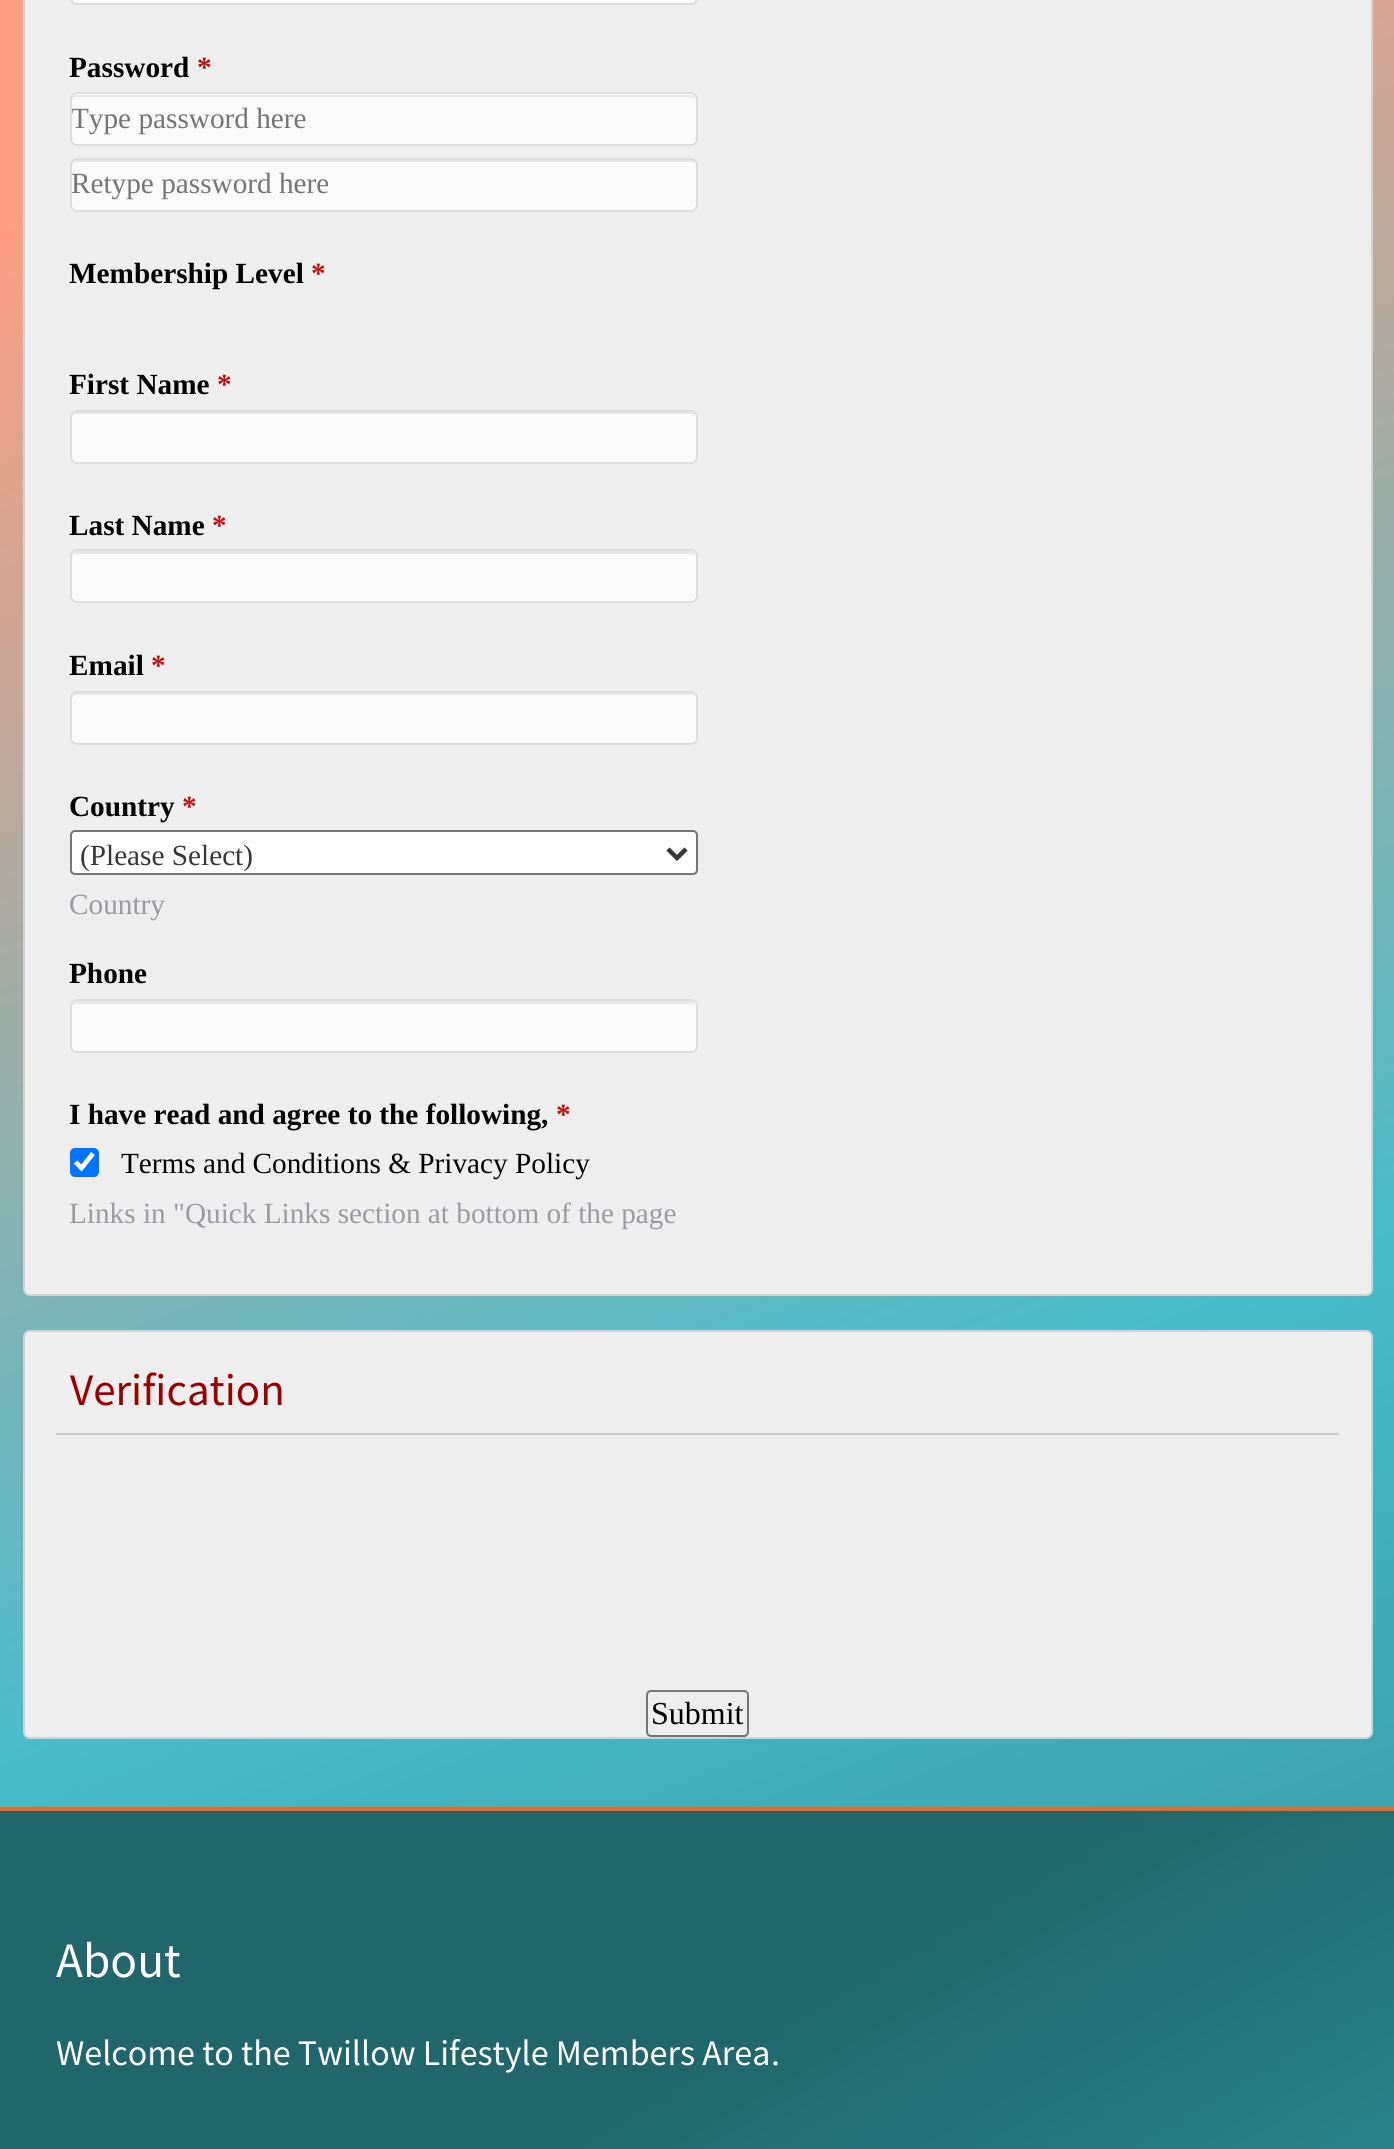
import math
import cairo

surface = cairo.ImageSurface(cairo.FORMAT_RGB24, 1394, 2149)
cr = cairo.Context(surface)
options = cairo.FontOptions()
options.set_hint_metrics(cairo.HINT_METRICS_OFF)
options.set_hint_style(cairo.HINT_STYLE_NONE)
cr.set_font_options(options)
cr.set_miter_limit(4)


def rgb(code):
    cr.set_source_rgb(*(v / 255 for v in bytes.fromhex(code[-6:])))


def rrect(x, y, w, h, r):
    cr.new_sub_path()
    for i, (u, v) in enumerate([(x + w - r, y + h - r), (x + r, y + h - r), (x + r, y + r), (x + w - r, y + r)]):
        cr.arc(u, v, r, i * math.pi / 2, (i + 1) * math.pi / 2)
    cr.close_path()


rgb("#ffffff")
cr.paint()
gradient = cairo.LinearGradient(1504, 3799, -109, -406)
gradient.add_color_stop_rgba(0.15, 0.125, 0.4, 0.416, 1)
gradient.add_color_stop_rgba(0.54, 0.278, 0.741, 0.796, 1)
gradient.add_color_stop_rgba(0.86, 0.996, 0.62, 0.514, 1)
cr.set_source(gradient)
cr.rectangle(0, 0, 1394, 1807)
cr.fill()
rgb("#eeeeee")
rrect(24, -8, 1348, 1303, 6)
cr.fill_preserve()
rgb("#d3d3d3")
cr.stroke()
rgb("#fafafa")
rrect(71, -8, 626, 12, 6)
cr.fill_preserve()
rgb("#dddddd")
cr.stroke()
rgb("#fafafa")
rrect(70, 92, 628, 54, 7)
cr.fill()
rgb("#e7e7e7")
cr.new_path()
cr.move_to(76, 97)
cr.line_to(691, 97)
cr.curve_to(693, 97, 695, 99, 695, 101)
cr.line_to(695, 100)
cr.curve_to(695, 97, 693, 95, 690, 95)
cr.line_to(77, 95)
cr.curve_to(74, 95, 72, 97, 72, 100)
cr.line_to(72, 101)
cr.curve_to(72, 99, 74, 97, 76, 97)
cr.close_path()
cr.fill()
rrect(71, 93, 626, 52, 6)
rgb("#dddddd")
cr.stroke()
rgb("#fafafa")
rrect(70, 158, 628, 54, 7)
cr.fill()
rgb("#e7e7e7")
cr.new_path()
cr.move_to(76, 162)
cr.line_to(691, 162)
cr.curve_to(693, 162, 695, 164, 695, 166)
cr.line_to(695, 165)
cr.curve_to(695, 162, 693, 160, 690, 160)
cr.line_to(77, 160)
cr.curve_to(74, 160, 72, 162, 72, 165)
cr.line_to(72, 166)
cr.curve_to(72, 164, 74, 162, 76, 162)
cr.close_path()
cr.fill()
rrect(71, 159, 626, 52, 6)
rgb("#dddddd")
cr.stroke()
rgb("#fafafa")
rrect(70, 410, 628, 54, 7)
cr.fill()
rgb("#e7e7e7")
cr.new_path()
cr.move_to(76, 414)
cr.line_to(691, 414)
cr.curve_to(693, 414, 695, 416, 695, 418)
cr.line_to(695, 417)
cr.curve_to(695, 414, 693, 412, 690, 412)
cr.line_to(77, 412)
cr.curve_to(74, 412, 72, 414, 72, 417)
cr.line_to(72, 418)
cr.curve_to(72, 416, 74, 414, 76, 414)
cr.close_path()
cr.fill()
rrect(71, 411, 626, 52, 6)
rgb("#dddddd")
cr.stroke()
rgb("#fafafa")
rrect(70, 549, 628, 54, 7)
cr.fill()
rgb("#e7e7e7")
cr.new_path()
cr.move_to(76, 554)
cr.line_to(691, 554)
cr.curve_to(693, 554, 695, 556, 695, 558)
cr.curve_to(695, 555, 694, 551, 690, 551)
cr.line_to(77, 551)
cr.curve_to(73, 551, 72, 555, 72, 558)
cr.curve_to(72, 556, 74, 554, 76, 554)
cr.close_path()
cr.fill()
rrect(71, 550, 626, 52, 6)
rgb("#dddddd")
cr.stroke()
rgb("#fafafa")
rrect(70, 691, 628, 54, 7)
cr.fill()
rgb("#e7e7e7")
cr.new_path()
cr.move_to(76, 695)
cr.line_to(691, 695)
cr.curve_to(693, 695, 695, 697, 695, 700)
cr.curve_to(695, 697, 694, 693, 690, 693)
cr.line_to(77, 693)
cr.curve_to(73, 693, 72, 697, 72, 700)
cr.curve_to(72, 697, 74, 695, 76, 695)
cr.close_path()
cr.fill()
rrect(71, 692, 626, 52, 6)
rgb("#dddddd")
cr.stroke()
rgb("#ffffff")
rrect(71, 831, 626, 43, 4)
cr.fill_preserve()
rgb("#767676")
cr.stroke()
cr.new_path()
cr.move_to(668, 849)
cr.line_to(677, 858)
cr.line_to(686, 849)
rgb("#373737")
cr.set_line_width(4.5)
cr.stroke()
rgb("#fafafa")
rrect(70, 999, 628, 54, 7)
cr.fill()
rgb("#e7e7e7")
cr.new_path()
cr.move_to(76, 1004)
cr.line_to(691, 1004)
cr.curve_to(693, 1004, 695, 1006, 695, 1008)
cr.curve_to(695, 1005, 694, 1001, 690, 1001)
cr.line_to(77, 1001)
cr.curve_to(73, 1001, 72, 1005, 72, 1008)
cr.curve_to(72, 1006, 74, 1004, 76, 1004)
cr.close_path()
cr.fill()
rrect(71, 1000, 626, 52, 6)
rgb("#dddddd")
cr.set_line_width(2)
cr.stroke()
rgb("#0075ff")
rrect(70, 1148, 29, 29, 5)
cr.fill()
cr.new_path()
cr.move_to(75.5, 1162)
cr.line_to(81.5, 1168)
cr.line_to(93, 1153.5)
rgb("#ffffff")
cr.set_line_width(4.7)
cr.stroke()
rgb("#eeeeee")
rrect(24, 1331, 1348, 407, 6)
cr.fill_preserve()
rgb("#d3d3d3")
cr.set_line_width(2)
cr.stroke()
rgb("#cccccc")
cr.rectangle(56, 1433, 1283, 2)
cr.fill()
rrect(647, 1691, 101, 45, 4)
rgb("#767676")
cr.stroke()
rgb("#f26520")
cr.rectangle(0, 1807, 1394, 4)
cr.fill()
gradient = cairo.LinearGradient(106, 1750, 1289, 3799)
gradient.add_color_stop_rgba(0.23, 0.125, 0.4, 0.416, 1)
gradient.add_color_stop_rgba(0.45, 0.165, 0.533, 0.553, 1)
gradient.add_color_stop_rgba(1, 0.278, 0.741, 0.796, 1)
cr.set_source(gradient)
cr.rectangle(0, 1811, 1394, 338)
cr.fill()
cr.select_font_face("Liberation Serif", cairo.FONT_SLANT_NORMAL, cairo.FONT_WEIGHT_BOLD)
cr.set_font_size(29.25)
rgb("#000000")
cr.move_to(69, 77)
cr.show_text("Password")
rgb("#bc1212")
cr.move_to(197, 77)
cr.show_text("*")
cr.save()
cr.rectangle(72, 101, 623, 36)
cr.clip()
cr.select_font_face("Liberation Serif")
rgb("#757575")
cr.move_to(71, 128)
cr.show_text("Type password here")
cr.restore()
cr.select_font_face("Liberation Serif")
rgb("#757575")
cr.move_to(71, 193)
cr.show_text("Retype password here")
cr.select_font_face("Liberation Serif", cairo.FONT_SLANT_NORMAL, cairo.FONT_WEIGHT_BOLD)
rgb("#000000")
cr.move_to(69, 283)
cr.show_text("Membership Level")
rgb("#bc1212")
cr.move_to(311, 283)
cr.show_text("*")
rgb("#000000")
cr.move_to(69, 394)
cr.show_text("First Name")
rgb("#bc1212")
cr.move_to(217, 394)
cr.show_text("*")
rgb("#000000")
cr.move_to(69, 535)
cr.show_text("Last Name")
rgb("#bc1212")
cr.move_to(212, 535)
cr.show_text("*")
rgb("#000000")
cr.move_to(69, 675)
cr.show_text("Email")
rgb("#bc1212")
cr.move_to(151, 675)
cr.show_text("*")
rgb("#000000")
cr.move_to(69, 816)
cr.show_text("Country")
rgb("#bc1212")
cr.move_to(182, 816)
cr.show_text("*")
cr.select_font_face("Liberation Serif")
rgb("#373737")
cr.move_to(80, 865)
cr.show_text("(Please Select)")
rgb("#9b9aa0")
cr.move_to(69, 914)
cr.show_text("Country")
cr.select_font_face("Liberation Serif", cairo.FONT_SLANT_NORMAL, cairo.FONT_WEIGHT_BOLD)
rgb("#000000")
cr.move_to(69, 983)
cr.show_text("Phone")
cr.move_to(69, 1124)
cr.show_text("I have read and agree to the following,")
rgb("#bc1212")
cr.move_to(556, 1124)
cr.show_text("*")
cr.select_font_face("Liberation Serif")
rgb("#000000")
cr.move_to(121, 1173)
cr.show_text("Terms and Conditions & Privacy Policy")
rgb("#9b9aa0")
cr.move_to(69, 1223)
cr.show_text("Links in \"Quick Links section at bottom of the page")
cr.select_font_face("Source Sans Pro")
cr.set_font_size(45)
rgb("#990000")
cr.move_to(70, 1405)
cr.show_text("Verification")
cr.select_font_face("Liberation Serif")
cr.set_font_size(32)
rgb("#000000")
cr.move_to(651, 1724)
cr.show_text("Submit")
cr.select_font_face("Source Sans Pro")
cr.set_font_size(49.5)
rgb("#ffffff")
cr.move_to(56, 1977)
cr.show_text("About")
cr.set_font_size(36)
cr.move_to(56, 2065)
cr.show_text("Welcome to the Twillow Lifestyle Members Area")
cr.select_font_face("Liberation Serif")
cr.move_to(771, 2065)
cr.show_text(".")
surface.write_to_png("page.png")
